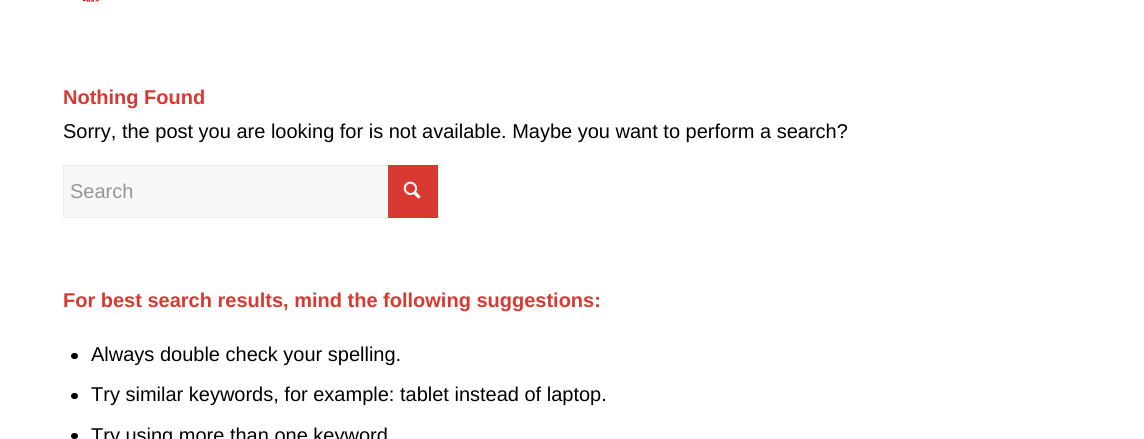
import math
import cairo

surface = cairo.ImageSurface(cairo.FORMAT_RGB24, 1144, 439)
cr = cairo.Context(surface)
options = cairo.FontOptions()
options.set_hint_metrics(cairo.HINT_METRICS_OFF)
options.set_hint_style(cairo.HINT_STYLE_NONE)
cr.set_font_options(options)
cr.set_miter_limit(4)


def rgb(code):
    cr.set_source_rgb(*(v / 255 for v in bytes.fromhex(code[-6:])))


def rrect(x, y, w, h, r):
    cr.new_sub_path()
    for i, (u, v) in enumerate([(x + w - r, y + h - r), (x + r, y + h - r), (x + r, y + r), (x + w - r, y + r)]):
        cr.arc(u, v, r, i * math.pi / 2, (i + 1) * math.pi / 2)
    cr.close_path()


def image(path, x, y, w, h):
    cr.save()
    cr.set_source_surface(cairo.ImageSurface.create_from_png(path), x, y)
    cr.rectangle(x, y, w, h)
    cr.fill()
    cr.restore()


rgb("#ffffff")
cr.paint()
image("img/1.png", 82, 0, 18, 3)
rgb("#f8f8f8")
cr.rectangle(64, 166, 324, 51)
cr.fill()
cr.rectangle(63.5, 165.5, 374, 52)
rgb("#ebebeb")
cr.set_line_width(1)
cr.stroke()
rgb("#d83931")
cr.rectangle(388, 165, 50, 53)
cr.fill()
image("img/2.png", 403, 181, 18, 18)
rgb("#000000")
rrect(71, 353, 7, 6, 3)
cr.fill()
rrect(71, 393, 7, 6, 3)
cr.fill()
rrect(71, 433, 7, 6, 3)
cr.fill()
cr.select_font_face("Liberation Sans", cairo.FONT_SLANT_NORMAL, cairo.FONT_WEIGHT_BOLD)
cr.set_font_size(20)
rgb("#d83931")
cr.move_to(63, 104)
cr.show_text("Nothing Found")
cr.select_font_face("Liberation Sans")
rgb("#000000")
cr.move_to(63, 138)
cr.show_text("Sorry, the post you are looking for is not available. Maybe you want to perform a search?")
rgb("#969696")
cr.move_to(70, 198)
cr.show_text("Search")
cr.select_font_face("Liberation Sans", cairo.FONT_SLANT_NORMAL, cairo.FONT_WEIGHT_BOLD)
rgb("#d83931")
cr.move_to(63, 307)
cr.show_text("For best search results, mind the following suggestions:")
cr.select_font_face("Liberation Sans")
rgb("#000000")
for x, y, s in [
    (91, 361, "Always double check your spelling."),
    (91, 401, "Try similar keywords, for example: tablet instead of laptop."),
    (91, 442, "Try using more than one keyword"),
]:
    cr.move_to(x, y)
    cr.show_text(s)
surface.write_to_png("page.png")
